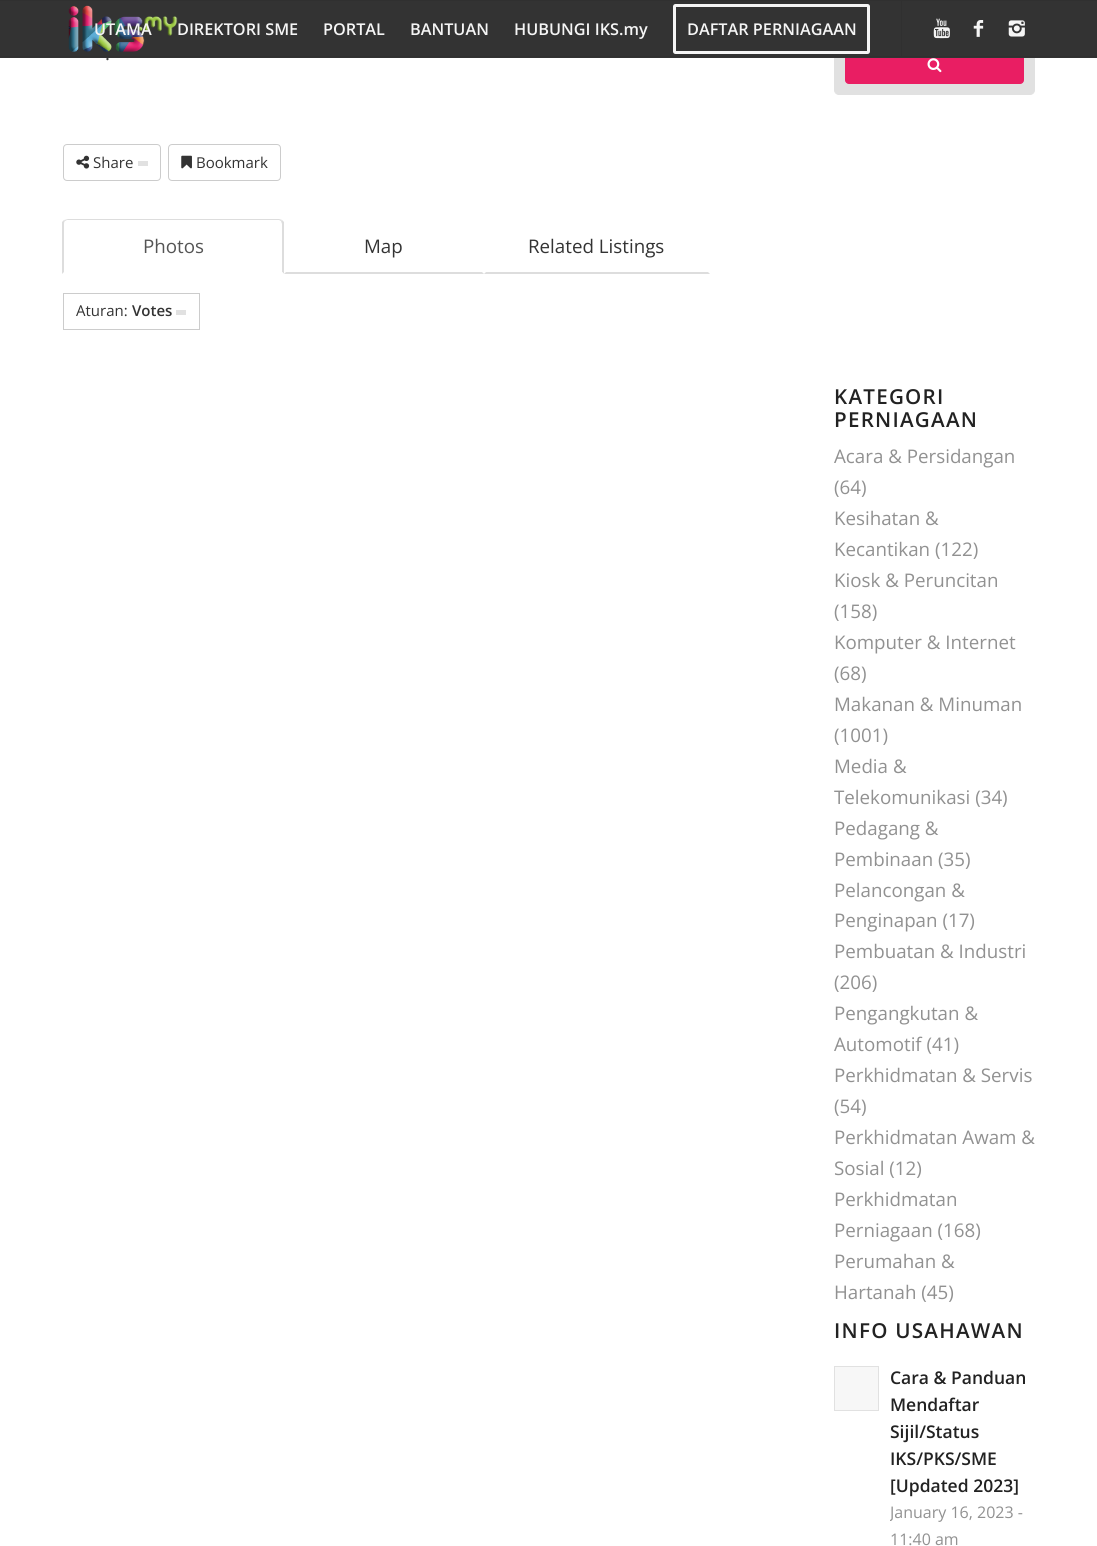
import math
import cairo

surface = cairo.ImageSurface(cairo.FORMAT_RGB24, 1097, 1546)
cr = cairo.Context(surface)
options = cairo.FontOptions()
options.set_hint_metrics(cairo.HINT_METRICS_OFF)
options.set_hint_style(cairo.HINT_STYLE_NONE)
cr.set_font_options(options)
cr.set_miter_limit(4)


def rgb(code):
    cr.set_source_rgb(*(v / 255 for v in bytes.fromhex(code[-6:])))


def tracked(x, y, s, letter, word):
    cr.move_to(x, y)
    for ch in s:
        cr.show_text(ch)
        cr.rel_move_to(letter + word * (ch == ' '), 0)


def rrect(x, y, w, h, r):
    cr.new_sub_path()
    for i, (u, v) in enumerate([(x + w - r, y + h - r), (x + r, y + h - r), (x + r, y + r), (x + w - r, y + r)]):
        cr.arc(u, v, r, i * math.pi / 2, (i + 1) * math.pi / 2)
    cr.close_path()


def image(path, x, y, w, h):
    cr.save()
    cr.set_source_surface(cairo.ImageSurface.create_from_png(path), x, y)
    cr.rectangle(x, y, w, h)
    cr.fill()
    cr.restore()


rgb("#ffffff")
cr.paint()
rgb("#e1e1e1")
rrect(834.5, -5.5, 200, 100, 4.5)
cr.fill_preserve()
cr.set_line_width(1)
cr.stroke()
rgb("#303030")
cr.rectangle(0, 0, 1097, 1)
cr.fill()
rrect(63.5, 144.5, 97, 36, 3.5)
rgb("#cccccc")
cr.stroke()
image("img/5.png", 76, 155, 14, 14)
rgb("#e1e1e1")
cr.rectangle(138, 161, 10, 5)
cr.fill()
rrect(168.5, 144.5, 112, 36, 3.5)
rgb("#cccccc")
cr.stroke()
image("img/6.png", 181, 155, 11, 14)
rgb("#dddddd")
cr.new_path()
cr.move_to(68, 219)
cr.line_to(64, 220)
cr.line_to(65, 221)
cr.line_to(67, 220)
cr.line_to(279, 220)
cr.line_to(281, 221)
cr.line_to(282, 220)
cr.line_to(279, 219)
cr.close_path()
cr.fill()
cr.new_path()
cr.move_to(282, 220)
cr.line_to(284, 222)
cr.line_to(284, 274)
cr.line_to(282, 272)
cr.line_to(282, 224)
cr.line_to(281, 221)
cr.close_path()
cr.fill()
rgb("#ffffff")
cr.new_path()
cr.move_to(284, 274)
cr.line_to(282, 272)
cr.line_to(64, 272)
cr.line_to(62, 274)
cr.close_path()
cr.fill()
rgb("#dddddd")
cr.new_path()
cr.move_to(62, 274)
cr.line_to(64, 272)
cr.line_to(64, 224)
cr.curve_to(64, 223, 64, 222, 65, 221)
cr.line_to(64, 220)
cr.line_to(62, 222)
cr.close_path()
cr.fill()
cr.new_path()
cr.move_to(484, 274)
cr.line_to(284, 274)
cr.line_to(286, 272)
cr.line_to(482, 272)
cr.close_path()
cr.fill()
cr.new_path()
cr.move_to(710, 274)
cr.line_to(484, 274)
cr.line_to(486, 272)
cr.line_to(708, 272)
cr.close_path()
cr.fill()
cr.rectangle(63.5, 293.5, 136, 36)
rgb("#cccccc")
cr.stroke()
rgb("#e1e1e1")
cr.rectangle(176, 310, 10, 5)
cr.fill()
rgb("#e91e63")
rrect(845.5, 46.5, 178, 37, 3.5)
cr.fill_preserve()
cr.stroke()
image("img/7.png", 927, 58, 15, 15)
rgb("#f7f7f7")
cr.rectangle(834.5, 1366.5, 44, 44)
cr.fill_preserve()
rgb("#e1e1e1")
cr.stroke()
cr.select_font_face("Open Sans")
cr.set_font_size(18.75)
rgb("#404040")
cr.move_to(105, 60)
cr.show_text(".")
rgb("#333333")
cr.rectangle(0, 1, 1097, 57)
cr.fill()
image("img/4.png", 1008, 20, 17, 17)
image("img/3.png", 973, 20, 11, 17)
image("img/2.png", 933, 18, 17, 21)
rrect(674.5, 5.5, 194, 47, 1)
rgb("#f5f5f5")
cr.set_line_width(3)
cr.stroke()
cr.select_font_face("Open Sans SemiBold")
cr.set_font_size(16.25)
for x, y, s in [
    (687, 35, "DAFTAR PERNIAGAAN"),
    (514, 35, "HUBUNGI IKS.my"),
    (410, 35, "BANTUAN"),
    (323, 35, "PORTAL"),
    (177, 35, "DIREKTORI SME"),
]:
    cr.move_to(x, y)
    cr.show_text(s)
image("img/1.png", 68, 5, 110, 47)
cr.move_to(94, 35)
cr.show_text("UTAMA")
rgb("#303030")
cr.rectangle(901, 1, 1, 55)
cr.fill()
cr.rectangle(0, 56, 1097, 1)
cr.fill()
cr.select_font_face("Open Sans")
cr.set_font_size(15)
rgb("#333333")
cr.move_to(93, 168)
cr.show_text("Share")
cr.move_to(196, 168)
cr.show_text("Bookmark")
cr.set_font_size(18.75)
rgb("#555555")
cr.move_to(143, 253)
cr.show_text("Photos")
rgb("#333333")
cr.move_to(364, 253)
cr.show_text("Map")
cr.move_to(528, 253)
cr.show_text("Related Listings")
cr.set_font_size(15)
cr.move_to(76, 316)
cr.show_text("Aturan:")
cr.select_font_face("Open Sans SemiBold")
cr.move_to(132, 316)
cr.show_text("Votes")
cr.set_font_size(20.6)
rgb("#222222")
tracked(834, 404, "KATEGORI", 1.25, 0)
tracked(834, 427, "PERNIAGAAN", 1.25, 0)
cr.select_font_face("Open Sans")
cr.set_font_size(18.75)
rgb("#919191")
for x, y, s in [
    (834, 463, "Acara & Persidangan"),
    (834, 494, "(64)"),
    (834, 525, "Kesihatan &"),
    (834, 556, "Kecantikan (122)"),
    (834, 587, "Kiosk & Peruncitan"),
    (834, 618, "(158)"),
    (834, 649, "Komputer & Internet"),
    (834, 680, "(68)"),
    (834, 711, "Makanan & Minuman"),
    (834, 742, "(1001)"),
    (834, 773, "Media &"),
    (834, 804, "Telekomunikasi (34)"),
    (834, 835, "Pedagang &"),
    (834, 866, "Pembinaan (35)"),
    (834, 897, "Pelancongan &"),
    (834, 927, "Penginapan (17)"),
    (834, 958, "Pembuatan & Industri"),
    (834, 989, "(206)"),
    (834, 1020, "Pengangkutan &"),
    (834, 1051, "Automotif (41)"),
    (834, 1082, "Perkhidmatan & Servis"),
    (834, 1113, "(54)"),
    (834, 1144, "Perkhidmatan Awam &"),
    (834, 1175, "Sosial (12)"),
    (834, 1206, "Perkhidmatan"),
    (834, 1237, "Perniagaan (168)"),
    (834, 1268, "Perumahan &"),
    (834, 1299, "Hartanah (45)"),
]:
    cr.move_to(x, y)
    cr.show_text(s)
cr.select_font_face("Open Sans SemiBold")
cr.set_font_size(20.6)
rgb("#222222")
tracked(834, 1338, "INFO USAHAWAN", 1.25, 0)
cr.set_font_size(17.5)
for x, y, s in [
    (890, 1384, "Cara & Panduan"),
    (890, 1411, "Mendaftar"),
    (890, 1438, "Sijil/Status"),
    (890, 1465, "IKS/PKS/SME"),
    (890, 1492, "[Updated 2023]"),
]:
    cr.move_to(x, y)
    cr.show_text(s)
cr.save()
cr.rectangle(890, 1364, 145, 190)
cr.clip()
cr.select_font_face("Open Sans")
cr.set_font_size(16)
rgb("#919191")
cr.move_to(890, 1518)
cr.show_text("January 16, 2023 -")
cr.restore()
cr.select_font_face("Open Sans")
cr.set_font_size(16)
rgb("#919191")
cr.move_to(890, 1545)
cr.show_text("11:40 am")
surface.write_to_png("page.png")
